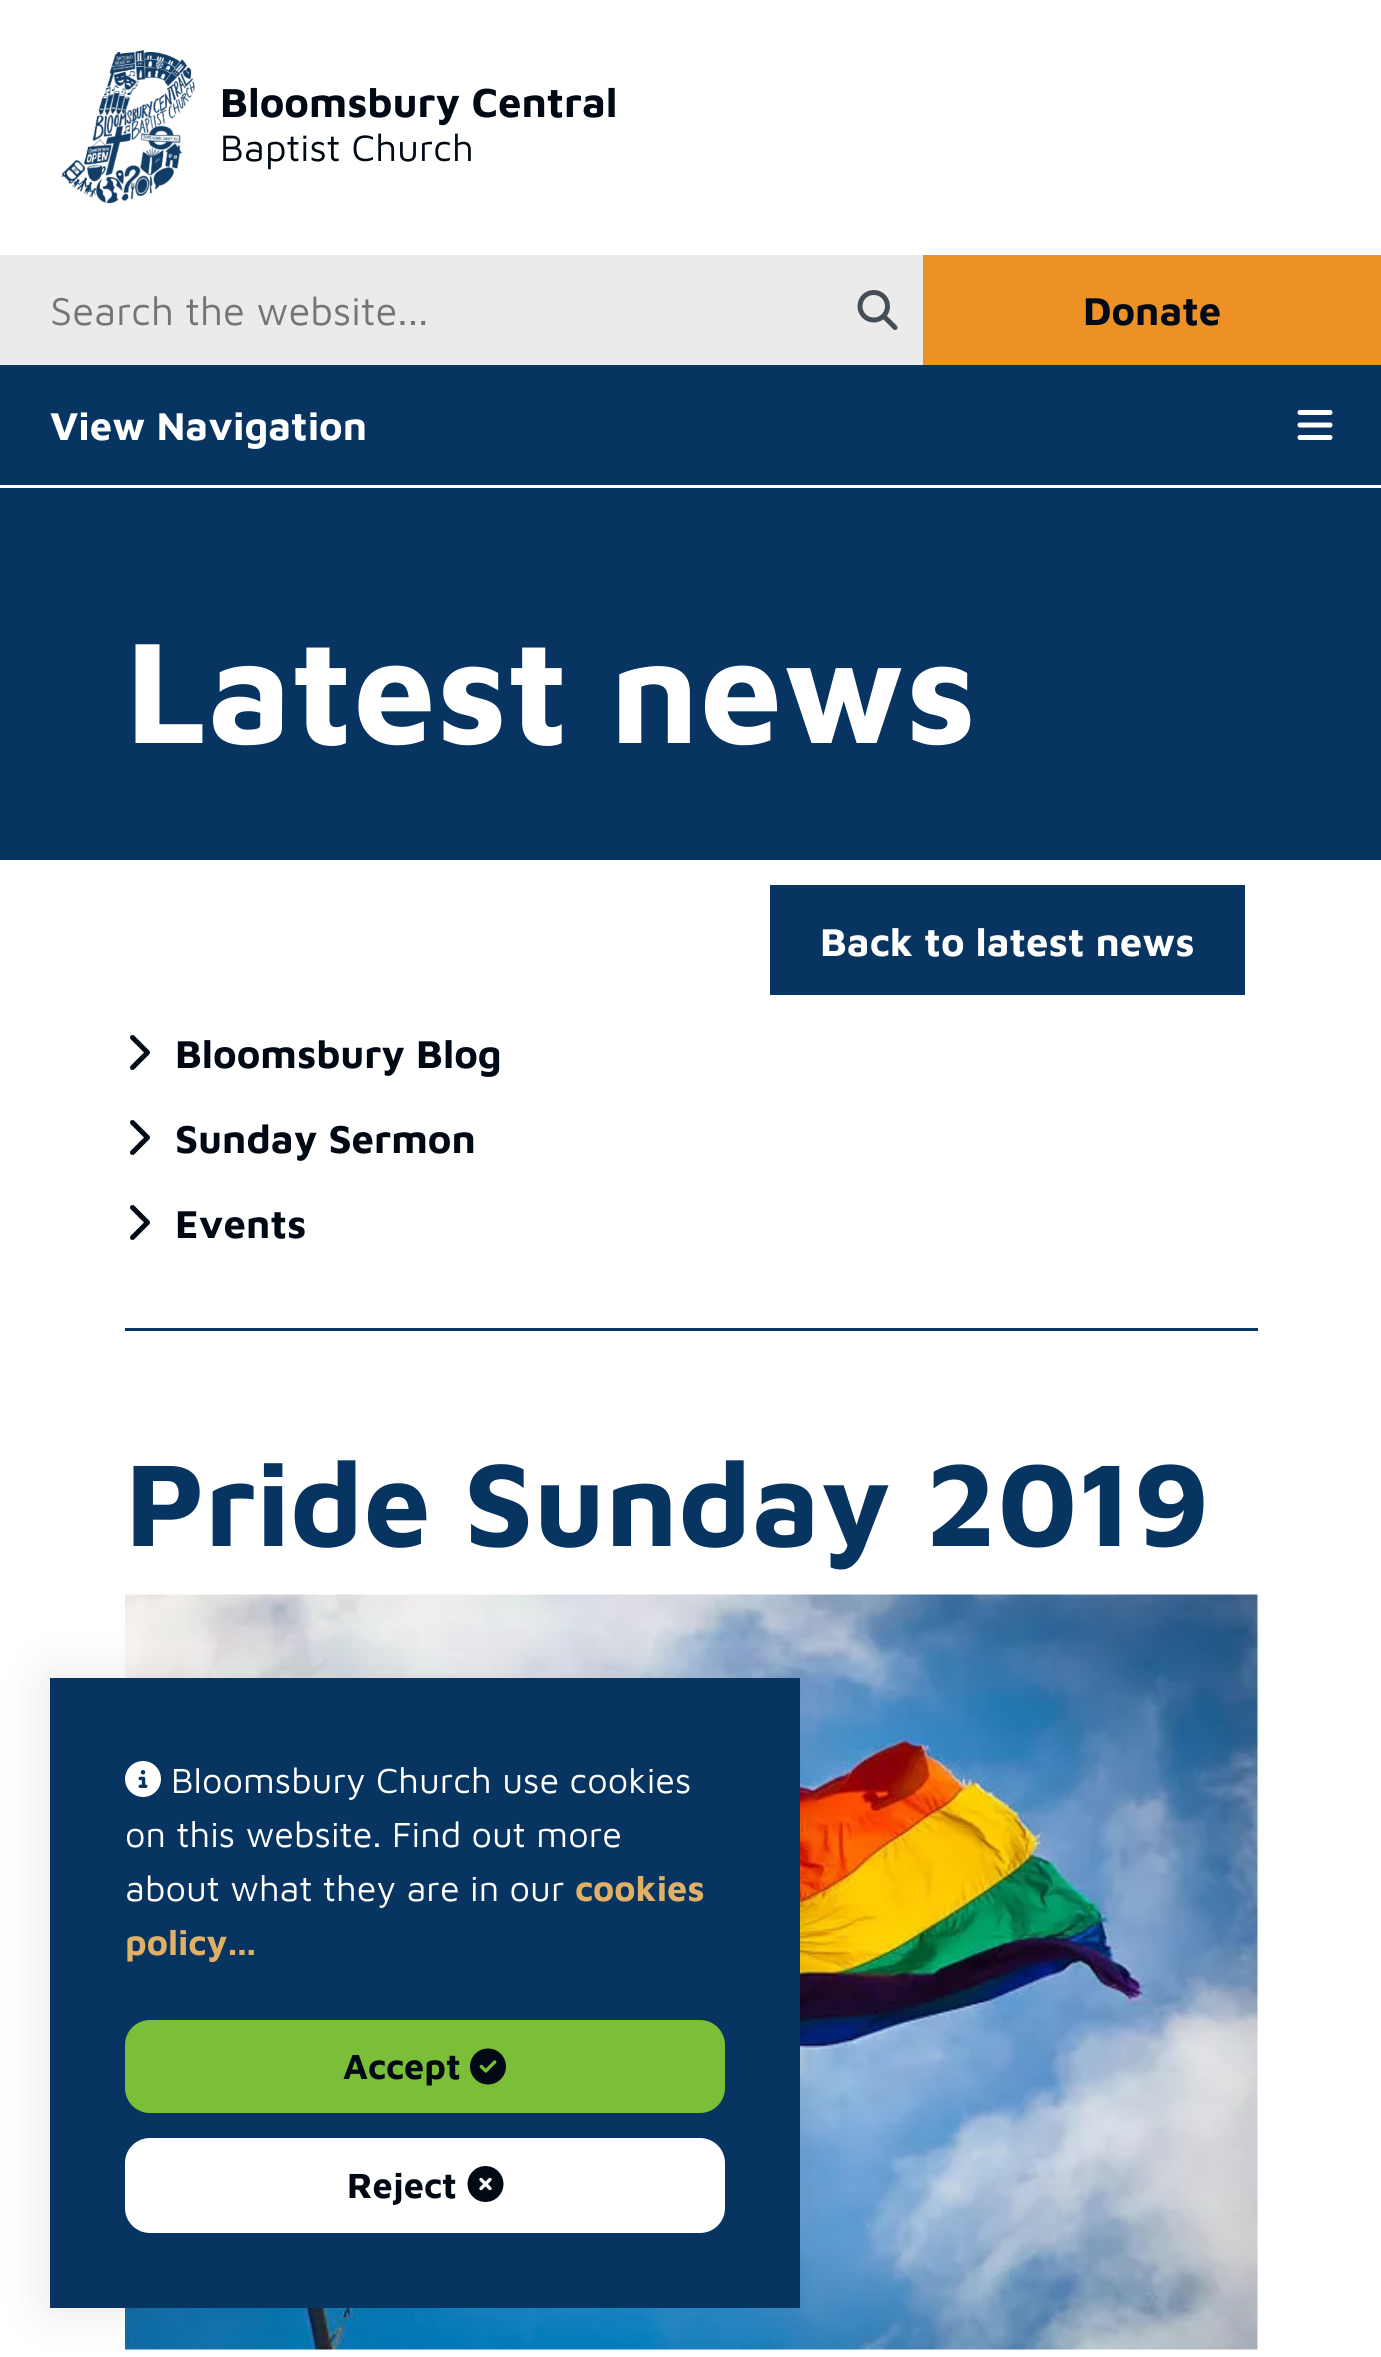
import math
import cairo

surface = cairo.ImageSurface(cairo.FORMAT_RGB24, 1381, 2357)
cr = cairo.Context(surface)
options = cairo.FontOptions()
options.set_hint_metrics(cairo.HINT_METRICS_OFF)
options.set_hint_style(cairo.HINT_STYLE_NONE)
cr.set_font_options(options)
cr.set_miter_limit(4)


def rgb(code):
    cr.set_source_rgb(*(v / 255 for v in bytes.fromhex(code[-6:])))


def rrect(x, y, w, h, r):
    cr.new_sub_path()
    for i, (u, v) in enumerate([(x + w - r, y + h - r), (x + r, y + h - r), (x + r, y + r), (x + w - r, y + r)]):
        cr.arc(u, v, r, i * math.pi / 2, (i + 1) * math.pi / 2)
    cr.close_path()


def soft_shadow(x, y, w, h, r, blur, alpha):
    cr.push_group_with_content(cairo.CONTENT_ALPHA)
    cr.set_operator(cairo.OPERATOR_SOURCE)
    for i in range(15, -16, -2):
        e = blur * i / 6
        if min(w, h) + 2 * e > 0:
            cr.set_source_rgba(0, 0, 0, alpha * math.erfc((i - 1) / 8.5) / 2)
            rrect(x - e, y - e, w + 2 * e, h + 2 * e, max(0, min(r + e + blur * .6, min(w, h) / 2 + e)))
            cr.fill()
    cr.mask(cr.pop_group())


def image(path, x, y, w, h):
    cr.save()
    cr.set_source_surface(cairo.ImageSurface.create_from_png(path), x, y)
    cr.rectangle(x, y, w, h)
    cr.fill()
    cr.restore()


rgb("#ffffff")
cr.paint()
image("img/1.png", 61, 50, 134, 154)
rgb("#ebebeb")
cr.rectangle(0, 255, 923, 110)
cr.fill()
image("img/2.png", 857, 290, 41, 40)
rgb("#ed9124")
cr.rectangle(923, 255, 458, 110)
cr.fill()
rgb("#083461")
cr.rectangle(0, 365, 1381, 120)
cr.fill()
image("img/3.png", 1297, 410, 36, 30)
for x, y, w, h, color in [
    (0, 488, 1381, 372, "#083461"),
    (770, 885, 475, 110, "#083461"),
    (125, 1328, 1133, 3, "#083461"),
]:
    rgb(color)
    cr.rectangle(x, y, w, h)
    cr.fill()
image("img/4.png", 130, 1035, 20, 35)
image("img/4.png", 130, 1120, 20, 35)
image("img/4.png", 130, 1205, 20, 35)
image("img/5.png", 125, 1594, 1133, 756)
rgb("#000000")
soft_shadow(50, 1678, 750, 630, 0, 26, 0.1)
rgb("#083461")
cr.rectangle(50, 1678, 750, 630)
cr.fill()
image("img/6.png", 125, 1761, 36, 36)
rgb("#7bbf39")
rrect(125, 2020, 600, 93, 25)
cr.fill()
image("img/7.png", 470, 2048, 36, 37)
rgb("#ffffff")
rrect(125, 2138, 600, 95, 25)
cr.fill()
image("img/8.png", 467, 2166, 37, 36)
cr.select_font_face("Maven Pro", cairo.FONT_SLANT_NORMAL, cairo.FONT_WEIGHT_BOLD)
cr.set_font_size(41.75)
rgb("#010a14")
cr.move_to(220, 117)
cr.show_text("Bloomsbury Central")
cr.select_font_face("Maven Pro")
cr.set_font_size(38)
cr.move_to(220, 161)
cr.show_text("Baptist Church")
cr.set_font_size(40)
rgb("#757575")
cr.move_to(50, 325)
cr.show_text("Search the website...")
cr.select_font_face("Maven Pro", cairo.FONT_SLANT_NORMAL, cairo.FONT_WEIGHT_BOLD)
rgb("#010a14")
cr.move_to(1083, 325)
cr.show_text("Donate")
rgb("#ffffff")
cr.move_to(50, 440)
cr.show_text("View Navigation")
cr.set_font_size(148)
cr.move_to(125, 743)
cr.show_text("Latest news")
cr.set_font_size(40)
cr.move_to(820, 956)
cr.show_text("Back to latest news")
rgb("#010a14")
for x, y, s in [
    (175, 1068, "Bloomsbury Blog"),
    (175, 1153, "Sunday Sermon"),
    (175, 1238, "Events"),
]:
    cr.move_to(x, y)
    cr.show_text(s)
cr.set_font_size(120)
rgb("#083461")
cr.move_to(125, 1546)
cr.show_text("Pride Sunday 2019")
cr.select_font_face("Maven Pro")
cr.set_font_size(36)
rgb("#ffffff")
for x, y, s in [
    (171, 1793, "Bloomsbury Church use cookies"),
    (125, 1847, "on this website. Find out more"),
    (125, 1901, "about what they are in our"),
]:
    cr.move_to(x, y)
    cr.show_text(s)
cr.select_font_face("Maven Pro", cairo.FONT_SLANT_NORMAL, cairo.FONT_WEIGHT_BOLD)
rgb("#e0b165")
cr.move_to(575, 1901)
cr.show_text("cookies")
cr.move_to(125, 1955)
cr.show_text("policy...")
rgb("#010a14")
cr.move_to(343, 2079)
cr.show_text("Accept")
cr.move_to(347, 2198)
cr.show_text("Reject")
surface.write_to_png("page.png")
